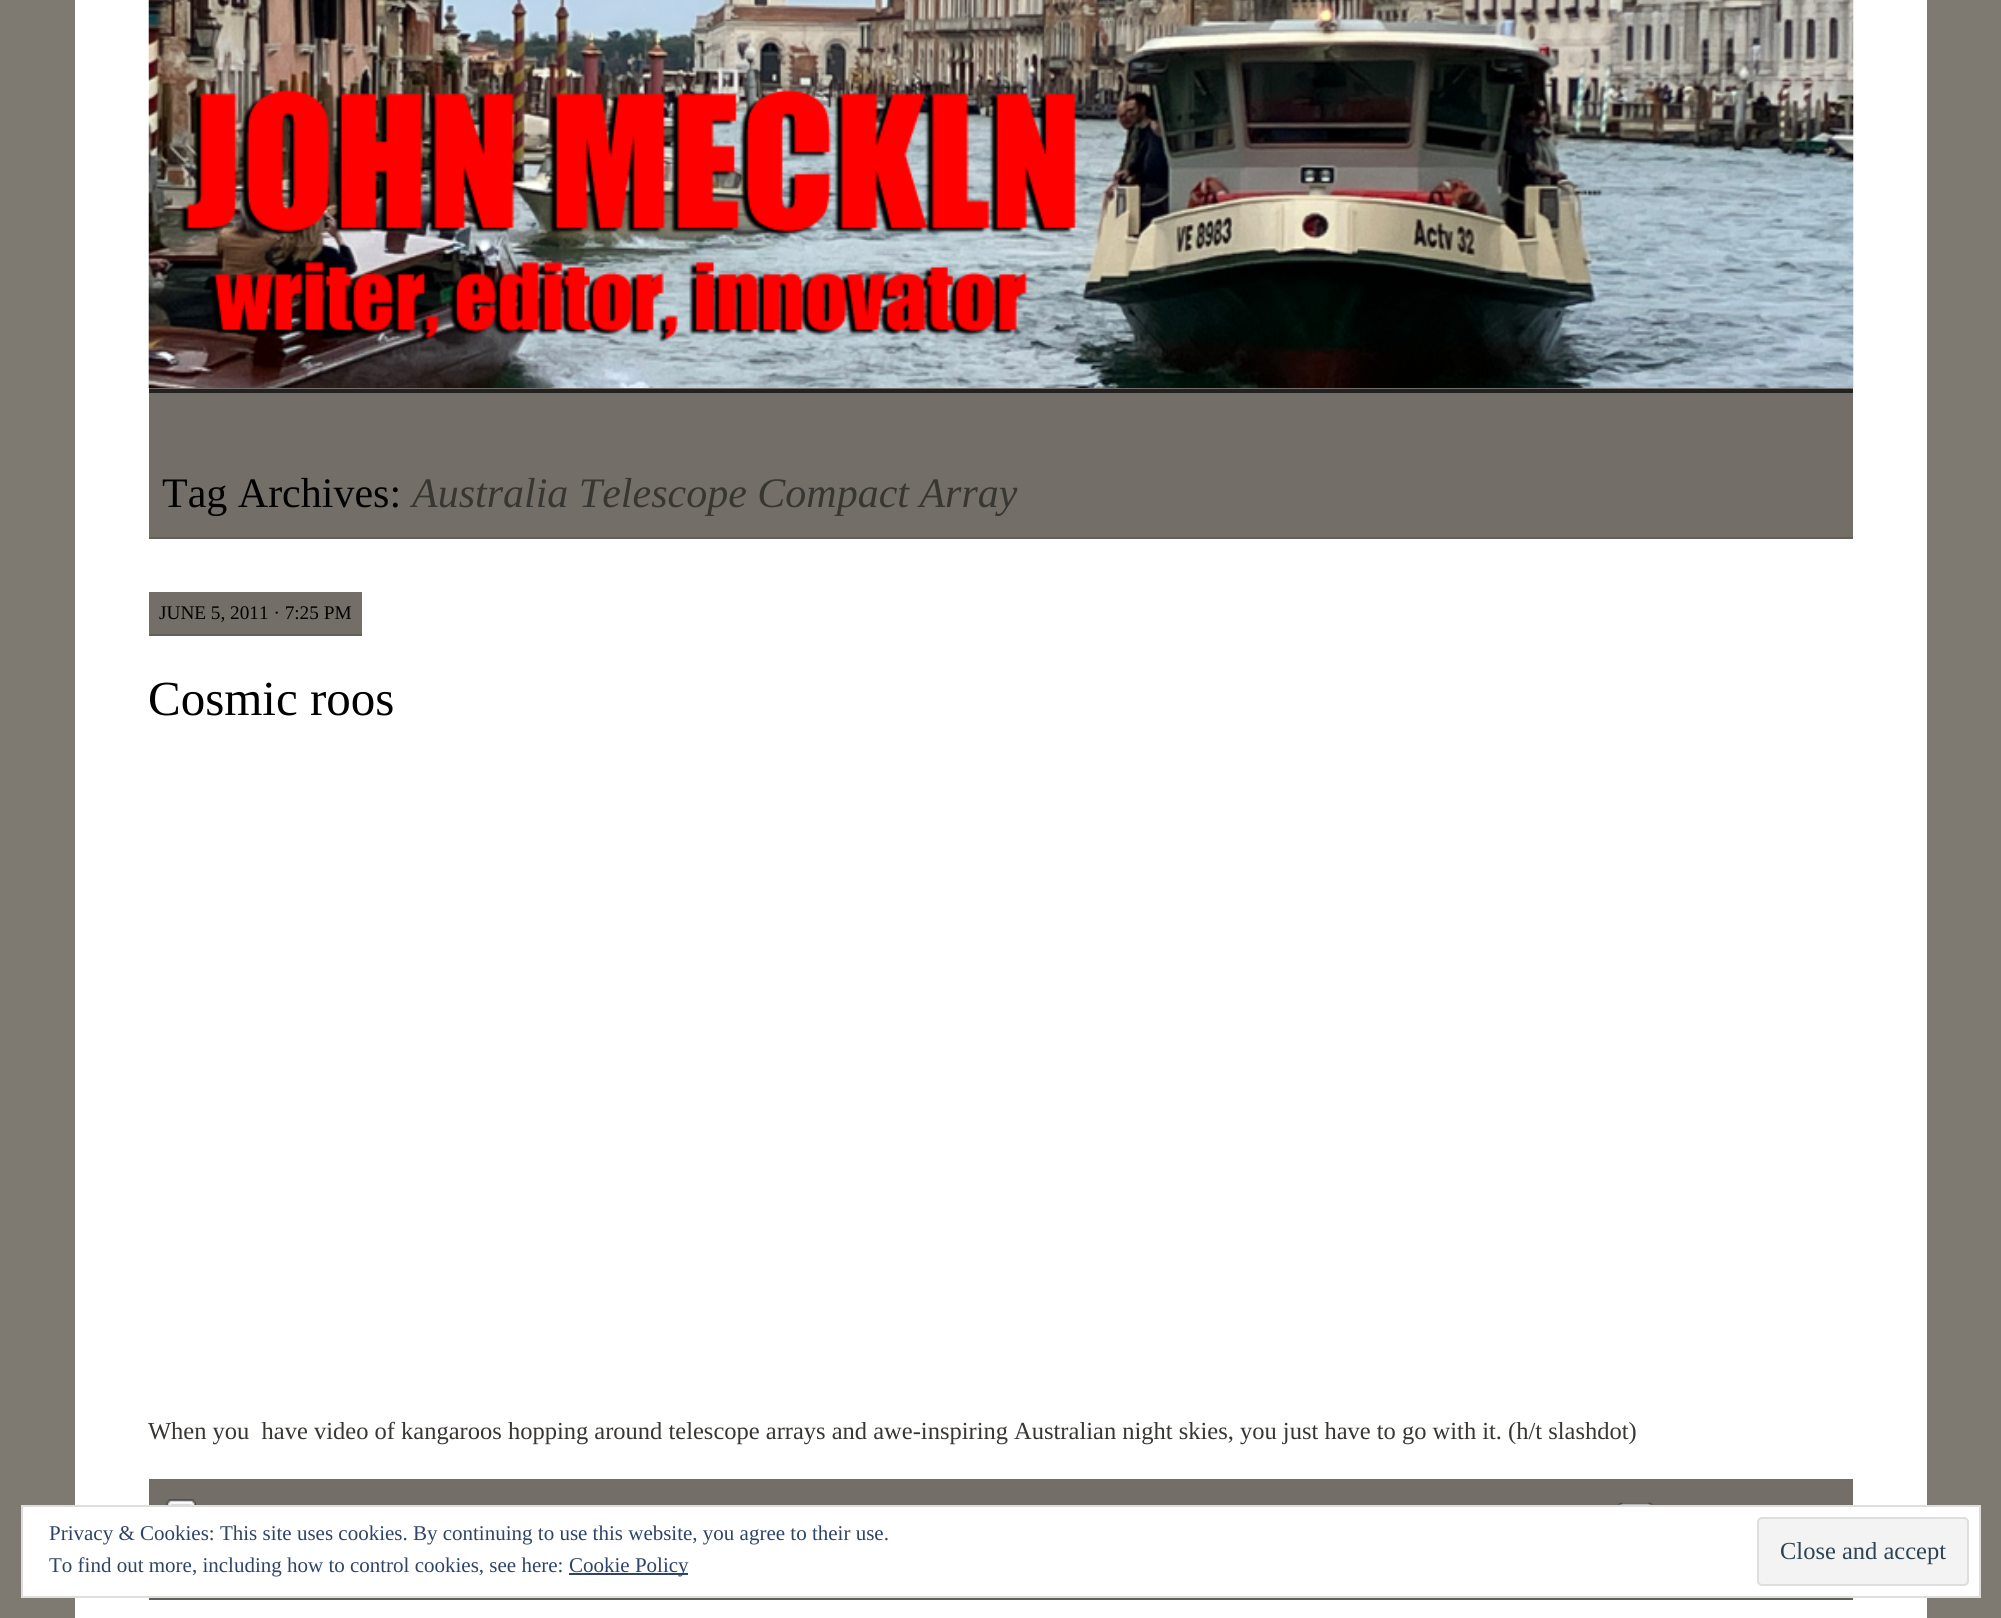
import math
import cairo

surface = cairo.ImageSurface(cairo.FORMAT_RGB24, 2001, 1618)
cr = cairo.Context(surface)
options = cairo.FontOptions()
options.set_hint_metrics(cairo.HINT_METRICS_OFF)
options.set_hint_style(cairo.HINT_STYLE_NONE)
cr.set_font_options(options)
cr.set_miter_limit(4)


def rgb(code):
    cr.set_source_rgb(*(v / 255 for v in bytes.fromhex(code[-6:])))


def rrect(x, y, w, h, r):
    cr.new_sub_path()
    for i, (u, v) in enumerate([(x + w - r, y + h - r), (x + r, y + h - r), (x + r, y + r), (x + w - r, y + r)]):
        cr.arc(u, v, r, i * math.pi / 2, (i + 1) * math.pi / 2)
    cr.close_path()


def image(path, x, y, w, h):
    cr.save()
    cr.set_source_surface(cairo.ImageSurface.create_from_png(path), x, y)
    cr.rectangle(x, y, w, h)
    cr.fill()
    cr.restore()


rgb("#7e7a71")
cr.paint()
rgb("#ffffff")
cr.rectangle(75, 0, 1852, 1618)
cr.fill()
image("img/1.png", 148, 0, 1706, 388)
for x, y, w, h, color in [
    (149, 388, 1704, 149, "#736f68"),
    (149, 389, 1704, 4, "#222222"),
    (149, 537, 1704, 2, "#636059"),
    (149, 592, 213, 42, "#736f68"),
    (149, 634, 213, 2, "#636059"),
    (149, 1479, 1704, 26, "#736f68"),
    (149, 1598, 1704, 2, "#636059"),
]:
    rgb(color)
    cr.rectangle(x, y, w, h)
    cr.fill()
image("img/2.png", 166, 1499, 30, 6)
image("img/3.png", 1617, 1502, 37, 3)
rgb("#ffffff")
cr.rectangle(22, 1506, 1958, 91)
cr.fill_preserve()
rgb("#dedede")
cr.stroke()
rgb("#f3f3f3")
rrect(1758, 1518, 210, 67, 4)
cr.fill_preserve()
rgb("#dedede")
cr.stroke()
rgb("#2e4467")
cr.rectangle(569, 1573, 119, 2)
cr.fill()
cr.select_font_face("Liberation Serif")
cr.set_font_size(42)
rgb("#000000")
cr.move_to(162, 507)
cr.show_text("Tag Archives:")
cr.select_font_face("Liberation Serif", cairo.FONT_SLANT_ITALIC)
rgb("#383632")
cr.move_to(412, 507)
cr.show_text("Australia Telescope Compact Array")
cr.select_font_face("Liberation Serif")
cr.set_font_size(19.25)
rgb("#000000")
cr.move_to(159, 619)
cr.show_text("JUNE 5, 2011 · 7:25 PM")
cr.set_font_size(49)
cr.move_to(148, 715)
cr.show_text("Cosmic roos")
cr.set_font_size(24.5)
rgb("#383632")
cr.move_to(148, 1439)
cr.show_text("When you  have video of kangaroos hopping around telescope arrays and awe-inspiring Australian night skies, you just have to go with it. (h/t slashdot)")
cr.set_font_size(21)
rgb("#2e4467")
cr.move_to(49, 1540)
cr.show_text("Privacy & Cookies: This site uses cookies. By continuing to use this website, you agree to their use.")
cr.set_font_size(24.5)
rgb("#2e4453")
cr.move_to(1780, 1559)
cr.show_text("Close and accept")
cr.set_font_size(21)
rgb("#2e4467")
cr.move_to(49, 1572)
cr.show_text("To find out more, including how to control cookies, see here:")
cr.move_to(569, 1572)
cr.show_text("Cookie Policy")
surface.write_to_png("page.png")
